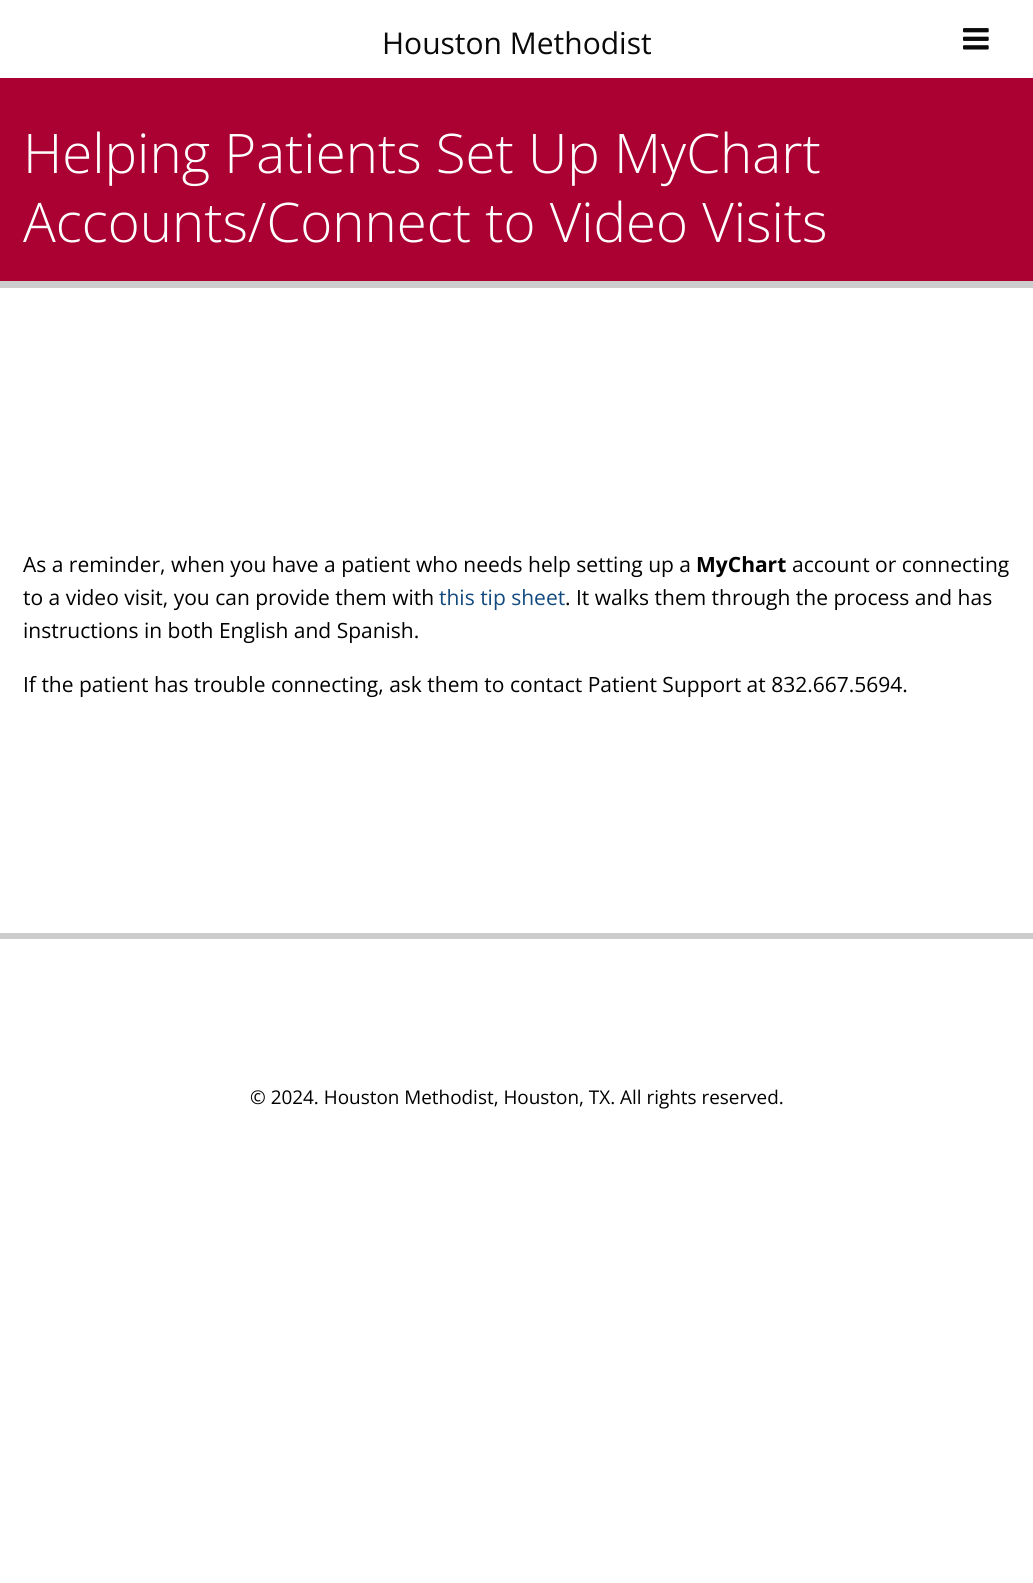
import math
import cairo

surface = cairo.ImageSurface(cairo.FORMAT_RGB24, 1033, 1583)
cr = cairo.Context(surface)
options = cairo.FontOptions()
options.set_hint_metrics(cairo.HINT_METRICS_OFF)
options.set_hint_style(cairo.HINT_STYLE_NONE)
cr.set_font_options(options)
cr.set_miter_limit(4)


def rgb(code):
    cr.set_source_rgb(*(v / 255 for v in bytes.fromhex(code[-6:])))


def image(path, x, y, w, h):
    cr.save()
    cr.set_source_surface(cairo.ImageSurface.create_from_png(path), x, y)
    cr.rectangle(x, y, w, h)
    cr.fill()
    cr.restore()


rgb("#ffffff")
cr.paint()
image("img/1.png", 963, 28, 26, 22)
for x, y, w, h, color in [
    (0, 78, 1033, 203, "#ab0032"),
    (0, 281, 1033, 7, "#cccccc"),
    (0, 933, 1033, 6, "#cccccc"),
]:
    rgb(color)
    cr.rectangle(x, y, w, h)
    cr.fill()
cr.select_font_face("Open Sans")
cr.set_font_size(30)
rgb("#0a0a0a")
cr.move_to(382, 54)
cr.show_text("Houston Methodist")
cr.select_font_face("Open Sans Light")
cr.set_font_size(54.6)
rgb("#ffffff")
cr.move_to(23, 173)
cr.show_text("Helping Patients Set Up MyChart")
cr.move_to(23, 242)
cr.show_text("Accounts/Connect to Video Visits")
cr.select_font_face("Open Sans")
cr.set_font_size(21)
rgb("#000000")
cr.move_to(23, 572)
cr.show_text("As a reminder, when you have a patient who needs help setting up a")
cr.select_font_face("Open Sans", cairo.FONT_SLANT_NORMAL, cairo.FONT_WEIGHT_BOLD)
cr.move_to(696, 572)
cr.show_text("MyChart")
cr.select_font_face("Open Sans")
cr.move_to(792, 572)
cr.show_text("account or connecting")
cr.move_to(23, 605)
cr.show_text("to a video visit, you can provide them with")
rgb("#124a7e")
cr.move_to(439, 605)
cr.show_text("this tip sheet")
rgb("#000000")
for x, y, s in [
    (565, 605, ". It walks them through the process and has"),
    (23, 638, "instructions in both English and Spanish."),
    (23, 692, "If the patient has trouble connecting, ask them to contact Patient Support at 832.667.5694."),
]:
    cr.move_to(x, y)
    cr.show_text(s)
cr.set_font_size(18.9)
cr.move_to(250, 1104)
cr.show_text("© 2024. Houston Methodist, Houston, TX. All rights reserved.")
surface.write_to_png("page.png")
